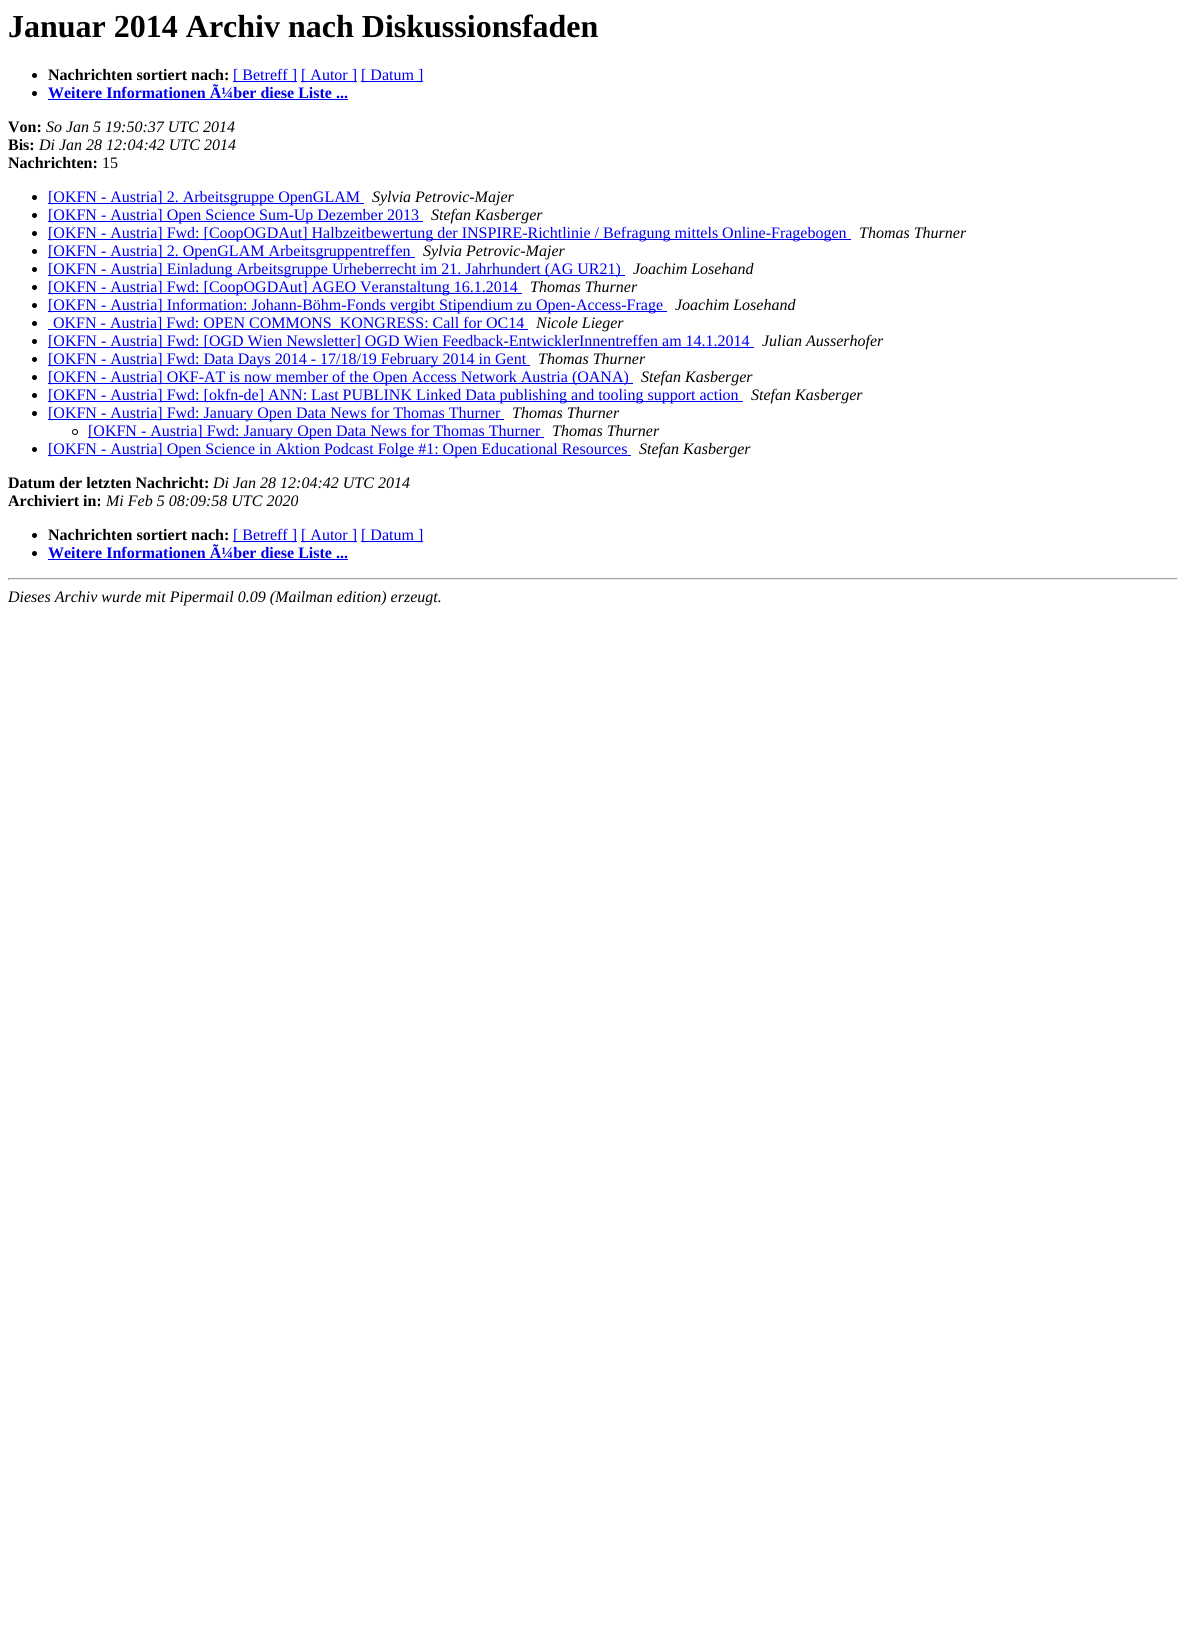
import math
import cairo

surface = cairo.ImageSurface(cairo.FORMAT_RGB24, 1186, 1645)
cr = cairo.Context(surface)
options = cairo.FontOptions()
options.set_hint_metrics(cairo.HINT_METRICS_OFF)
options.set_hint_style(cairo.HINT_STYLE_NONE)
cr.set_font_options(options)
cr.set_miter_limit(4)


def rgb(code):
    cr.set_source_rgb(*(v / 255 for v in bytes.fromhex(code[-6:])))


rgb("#ffffff")
cr.paint()
rgb("#000000")
cr.arc(34.5, 75.5, 2.5, 0, 2 * math.pi)
cr.fill()
for x, y, w, h, color in [
    (233, 81, 64, 1, "#0000ee"),
    (301, 81, 56, 1, "#0000ee"),
    (361, 81, 62, 1, "#0000ee"),
]:
    rgb(color)
    cr.rectangle(x, y, w, h)
    cr.fill()
rgb("#000000")
cr.arc(34.5, 93.5, 2.5, 0, 2 * math.pi)
cr.fill()
rgb("#0000ee")
cr.rectangle(48, 99, 300, 1)
cr.fill()
rgb("#000000")
cr.arc(34.5, 197.5, 2.5, 0, 2 * math.pi)
cr.fill()
rgb("#0000ee")
cr.rectangle(48, 203, 316, 1)
cr.fill()
rgb("#000000")
cr.arc(34.5, 215.5, 2.5, 0, 2 * math.pi)
cr.fill()
rgb("#0000ee")
cr.rectangle(48, 221, 375, 1)
cr.fill()
rgb("#000000")
cr.arc(34.5, 233.5, 2.5, 0, 2 * math.pi)
cr.fill()
rgb("#0000ee")
cr.rectangle(48, 239, 803, 1)
cr.fill()
rgb("#000000")
cr.arc(34.5, 251.5, 2.5, 0, 2 * math.pi)
cr.fill()
rgb("#0000ee")
cr.rectangle(48, 257, 367, 1)
cr.fill()
rgb("#000000")
cr.arc(34.5, 269.5, 2.5, 0, 2 * math.pi)
cr.fill()
rgb("#0000ee")
cr.rectangle(48, 275, 577, 1)
cr.fill()
rgb("#000000")
cr.arc(34.5, 287.5, 2.5, 0, 2 * math.pi)
cr.fill()
rgb("#0000ee")
cr.rectangle(48, 293, 474, 1)
cr.fill()
rgb("#000000")
cr.arc(34.5, 305.5, 2.5, 0, 2 * math.pi)
cr.fill()
rgb("#0000ee")
cr.rectangle(48, 311, 619, 1)
cr.fill()
rgb("#000000")
cr.arc(34.5, 323.5, 2.5, 0, 2 * math.pi)
cr.fill()
rgb("#0000ee")
cr.rectangle(48, 329, 480, 1)
cr.fill()
rgb("#000000")
cr.arc(34.5, 341.5, 2.5, 0, 2 * math.pi)
cr.fill()
rgb("#0000ee")
cr.rectangle(48, 347, 706, 1)
cr.fill()
rgb("#000000")
cr.arc(34.5, 359.5, 2.5, 0, 2 * math.pi)
cr.fill()
rgb("#0000ee")
cr.rectangle(48, 365, 482, 1)
cr.fill()
rgb("#000000")
cr.arc(34.5, 377.5, 2.5, 0, 2 * math.pi)
cr.fill()
rgb("#0000ee")
cr.rectangle(48, 383, 585, 1)
cr.fill()
rgb("#000000")
cr.arc(34.5, 395.5, 2.5, 0, 2 * math.pi)
cr.fill()
rgb("#0000ee")
cr.rectangle(48, 401, 695, 1)
cr.fill()
rgb("#000000")
cr.arc(34.5, 413.5, 2.5, 0, 2 * math.pi)
cr.fill()
rgb("#0000ee")
cr.rectangle(48, 419, 456, 1)
cr.fill()
cr.arc(75, 432, 2.5, 0, 2 * math.pi)
rgb("#000000")
cr.set_line_width(1)
cr.stroke()
rgb("#0000ee")
cr.rectangle(88, 437, 456, 1)
cr.fill()
rgb("#000000")
cr.arc(34.5, 449.5, 2.5, 0, 2 * math.pi)
cr.fill()
rgb("#0000ee")
cr.rectangle(48, 455, 583, 1)
cr.fill()
rgb("#000000")
cr.arc(34.5, 535.5, 2.5, 0, 2 * math.pi)
cr.fill()
for x, y, w, h, color in [
    (233, 541, 64, 1, "#0000ee"),
    (301, 541, 56, 1, "#0000ee"),
    (361, 541, 62, 1, "#0000ee"),
]:
    rgb(color)
    cr.rectangle(x, y, w, h)
    cr.fill()
rgb("#000000")
cr.arc(34.5, 553.5, 2.5, 0, 2 * math.pi)
cr.fill()
for x, y, w, h, color in [
    (48, 559, 300, 1, "#0000ee"),
    (8, 578, 1170, 1, "#9f9f9f"),
    (1177, 578, 1, 2, "#eeeeee"),
    (8, 579, 1170, 1, "#eeeeee"),
    (8, 578, 1, 2, "#9f9f9f"),
]:
    rgb(color)
    cr.rectangle(x, y, w, h)
    cr.fill()
cr.select_font_face("Liberation Serif", cairo.FONT_SLANT_NORMAL, cairo.FONT_WEIGHT_BOLD)
cr.set_font_size(32)
rgb("#000000")
cr.move_to(8, 37)
cr.show_text("Januar 2014 Archiv nach Diskussionsfaden")
cr.set_font_size(16)
cr.move_to(48, 80)
cr.show_text("Nachrichten sortiert nach:")
cr.select_font_face("Liberation Serif")
rgb("#0000ee")
for x, y, s in [
    (233, 80, "[ Betreff ]"),
    (301, 80, "[ Autor ]"),
    (361, 80, "[ Datum ]"),
]:
    cr.move_to(x, y)
    cr.show_text(s)
cr.select_font_face("Liberation Serif", cairo.FONT_SLANT_NORMAL, cairo.FONT_WEIGHT_BOLD)
cr.move_to(48, 98)
cr.show_text("Weitere Informationen Ã¼ber diese Liste ...")
rgb("#000000")
cr.move_to(8, 132)
cr.show_text("Von:")
cr.select_font_face("Liberation Serif", cairo.FONT_SLANT_ITALIC)
cr.move_to(46, 132)
cr.show_text("So Jan 5 19:50:37 UTC 2014")
cr.select_font_face("Liberation Serif", cairo.FONT_SLANT_NORMAL, cairo.FONT_WEIGHT_BOLD)
cr.move_to(8, 150)
cr.show_text("Bis:")
cr.select_font_face("Liberation Serif", cairo.FONT_SLANT_ITALIC)
cr.move_to(39, 150)
cr.show_text("Di Jan 28 12:04:42 UTC 2014")
cr.select_font_face("Liberation Serif", cairo.FONT_SLANT_NORMAL, cairo.FONT_WEIGHT_BOLD)
cr.move_to(8, 168)
cr.show_text("Nachrichten:")
cr.select_font_face("Liberation Serif")
cr.move_to(102, 168)
cr.show_text("15")
rgb("#0000ee")
cr.move_to(48, 202)
cr.show_text("[OKFN - Austria] 2. Arbeitsgruppe OpenGLAM")
cr.select_font_face("Liberation Serif", cairo.FONT_SLANT_ITALIC)
rgb("#000000")
cr.move_to(372, 202)
cr.show_text("Sylvia Petrovic-Majer")
cr.select_font_face("Liberation Serif")
rgb("#0000ee")
cr.move_to(48, 220)
cr.show_text("[OKFN - Austria] Open Science Sum-Up Dezember 2013")
cr.select_font_face("Liberation Serif", cairo.FONT_SLANT_ITALIC)
rgb("#000000")
cr.move_to(431, 220)
cr.show_text("Stefan Kasberger")
cr.select_font_face("Liberation Serif")
rgb("#0000ee")
cr.move_to(48, 238)
cr.show_text("[OKFN - Austria] Fwd: [CoopOGDAut] Halbzeitbewertung der INSPIRE-Richtlinie / Befragung mittels Online-Fragebogen")
cr.select_font_face("Liberation Serif", cairo.FONT_SLANT_ITALIC)
rgb("#000000")
cr.move_to(859, 238)
cr.show_text("Thomas Thurner")
cr.select_font_face("Liberation Serif")
rgb("#0000ee")
cr.move_to(48, 256)
cr.show_text("[OKFN - Austria] 2. OpenGLAM Arbeitsgruppentreffen")
cr.select_font_face("Liberation Serif", cairo.FONT_SLANT_ITALIC)
rgb("#000000")
cr.move_to(423, 256)
cr.show_text("Sylvia Petrovic-Majer")
cr.select_font_face("Liberation Serif")
rgb("#0000ee")
cr.move_to(48, 274)
cr.show_text("[OKFN - Austria] Einladung Arbeitsgruppe Urheberrecht im 21. Jahrhundert (AG UR21)")
cr.select_font_face("Liberation Serif", cairo.FONT_SLANT_ITALIC)
rgb("#000000")
cr.move_to(633, 274)
cr.show_text("Joachim Losehand")
cr.select_font_face("Liberation Serif")
rgb("#0000ee")
cr.move_to(48, 292)
cr.show_text("[OKFN - Austria] Fwd: [CoopOGDAut] AGEO Veranstaltung 16.1.2014")
cr.select_font_face("Liberation Serif", cairo.FONT_SLANT_ITALIC)
rgb("#000000")
cr.move_to(530, 292)
cr.show_text("Thomas Thurner")
cr.select_font_face("Liberation Serif")
rgb("#0000ee")
cr.move_to(48, 310)
cr.show_text("[OKFN - Austria] Information: Johann-Böhm-Fonds vergibt Stipendium zu Open-Access-Frage")
cr.select_font_face("Liberation Serif", cairo.FONT_SLANT_ITALIC)
rgb("#000000")
cr.move_to(675, 310)
cr.show_text("Joachim Losehand")
cr.select_font_face("Liberation Serif")
rgb("#0000ee")
cr.move_to(53, 328)
cr.show_text("OKFN - Austria] Fwd: OPEN COMMONS_KONGRESS: Call for OC14")
cr.select_font_face("Liberation Serif", cairo.FONT_SLANT_ITALIC)
rgb("#000000")
cr.move_to(536, 328)
cr.show_text("Nicole Lieger")
cr.select_font_face("Liberation Serif")
rgb("#0000ee")
cr.move_to(48, 346)
cr.show_text("[OKFN - Austria] Fwd: [OGD Wien Newsletter] OGD Wien Feedback-EntwicklerInnentreffen am 14.1.2014")
cr.select_font_face("Liberation Serif", cairo.FONT_SLANT_ITALIC)
rgb("#000000")
cr.move_to(762, 346)
cr.show_text("Julian Ausserhofer")
cr.select_font_face("Liberation Serif")
rgb("#0000ee")
cr.move_to(48, 364)
cr.show_text("[OKFN - Austria] Fwd: Data Days 2014 - 17/18/19 February 2014 in Gent")
cr.select_font_face("Liberation Serif", cairo.FONT_SLANT_ITALIC)
rgb("#000000")
cr.move_to(538, 364)
cr.show_text("Thomas Thurner")
cr.select_font_face("Liberation Serif")
rgb("#0000ee")
cr.move_to(48, 382)
cr.show_text("[OKFN - Austria] OKF-AT is now member of the Open Access Network Austria (OANA)")
cr.select_font_face("Liberation Serif", cairo.FONT_SLANT_ITALIC)
rgb("#000000")
cr.move_to(641, 382)
cr.show_text("Stefan Kasberger")
cr.select_font_face("Liberation Serif")
rgb("#0000ee")
cr.move_to(48, 400)
cr.show_text("[OKFN - Austria] Fwd: [okfn-de] ANN: Last PUBLINK Linked Data publishing and tooling support action")
cr.select_font_face("Liberation Serif", cairo.FONT_SLANT_ITALIC)
rgb("#000000")
cr.move_to(751, 400)
cr.show_text("Stefan Kasberger")
cr.select_font_face("Liberation Serif")
rgb("#0000ee")
cr.move_to(48, 418)
cr.show_text("[OKFN - Austria] Fwd: January Open Data News for Thomas Thurner")
cr.select_font_face("Liberation Serif", cairo.FONT_SLANT_ITALIC)
rgb("#000000")
cr.move_to(512, 418)
cr.show_text("Thomas Thurner")
cr.select_font_face("Liberation Serif")
rgb("#0000ee")
cr.move_to(88, 436)
cr.show_text("[OKFN - Austria] Fwd: January Open Data News for Thomas Thurner")
cr.select_font_face("Liberation Serif", cairo.FONT_SLANT_ITALIC)
rgb("#000000")
cr.move_to(552, 436)
cr.show_text("Thomas Thurner")
cr.select_font_face("Liberation Serif")
rgb("#0000ee")
cr.move_to(48, 454)
cr.show_text("[OKFN - Austria] Open Science in Aktion Podcast Folge #1: Open Educational Resources")
cr.select_font_face("Liberation Serif", cairo.FONT_SLANT_ITALIC)
rgb("#000000")
cr.move_to(639, 454)
cr.show_text("Stefan Kasberger")
cr.select_font_face("Liberation Serif", cairo.FONT_SLANT_NORMAL, cairo.FONT_WEIGHT_BOLD)
cr.move_to(8, 488)
cr.show_text("Datum der letzten Nachricht:")
cr.select_font_face("Liberation Serif", cairo.FONT_SLANT_ITALIC)
cr.move_to(213, 488)
cr.show_text("Di Jan 28 12:04:42 UTC 2014")
cr.select_font_face("Liberation Serif", cairo.FONT_SLANT_NORMAL, cairo.FONT_WEIGHT_BOLD)
cr.move_to(8, 506)
cr.show_text("Archiviert in:")
cr.select_font_face("Liberation Serif", cairo.FONT_SLANT_ITALIC)
cr.move_to(106, 506)
cr.show_text("Mi Feb 5 08:09:58 UTC 2020")
cr.select_font_face("Liberation Serif", cairo.FONT_SLANT_NORMAL, cairo.FONT_WEIGHT_BOLD)
cr.move_to(48, 540)
cr.show_text("Nachrichten sortiert nach:")
cr.select_font_face("Liberation Serif")
rgb("#0000ee")
for x, y, s in [
    (233, 540, "[ Betreff ]"),
    (301, 540, "[ Autor ]"),
    (361, 540, "[ Datum ]"),
]:
    cr.move_to(x, y)
    cr.show_text(s)
cr.select_font_face("Liberation Serif", cairo.FONT_SLANT_NORMAL, cairo.FONT_WEIGHT_BOLD)
cr.move_to(48, 558)
cr.show_text("Weitere Informationen Ã¼ber diese Liste ...")
cr.select_font_face("Liberation Serif", cairo.FONT_SLANT_ITALIC)
rgb("#000000")
cr.move_to(8, 602)
cr.show_text("Dieses Archiv wurde mit Pipermail 0.09 (Mailman edition) erzeugt.")
surface.write_to_png("page.png")
